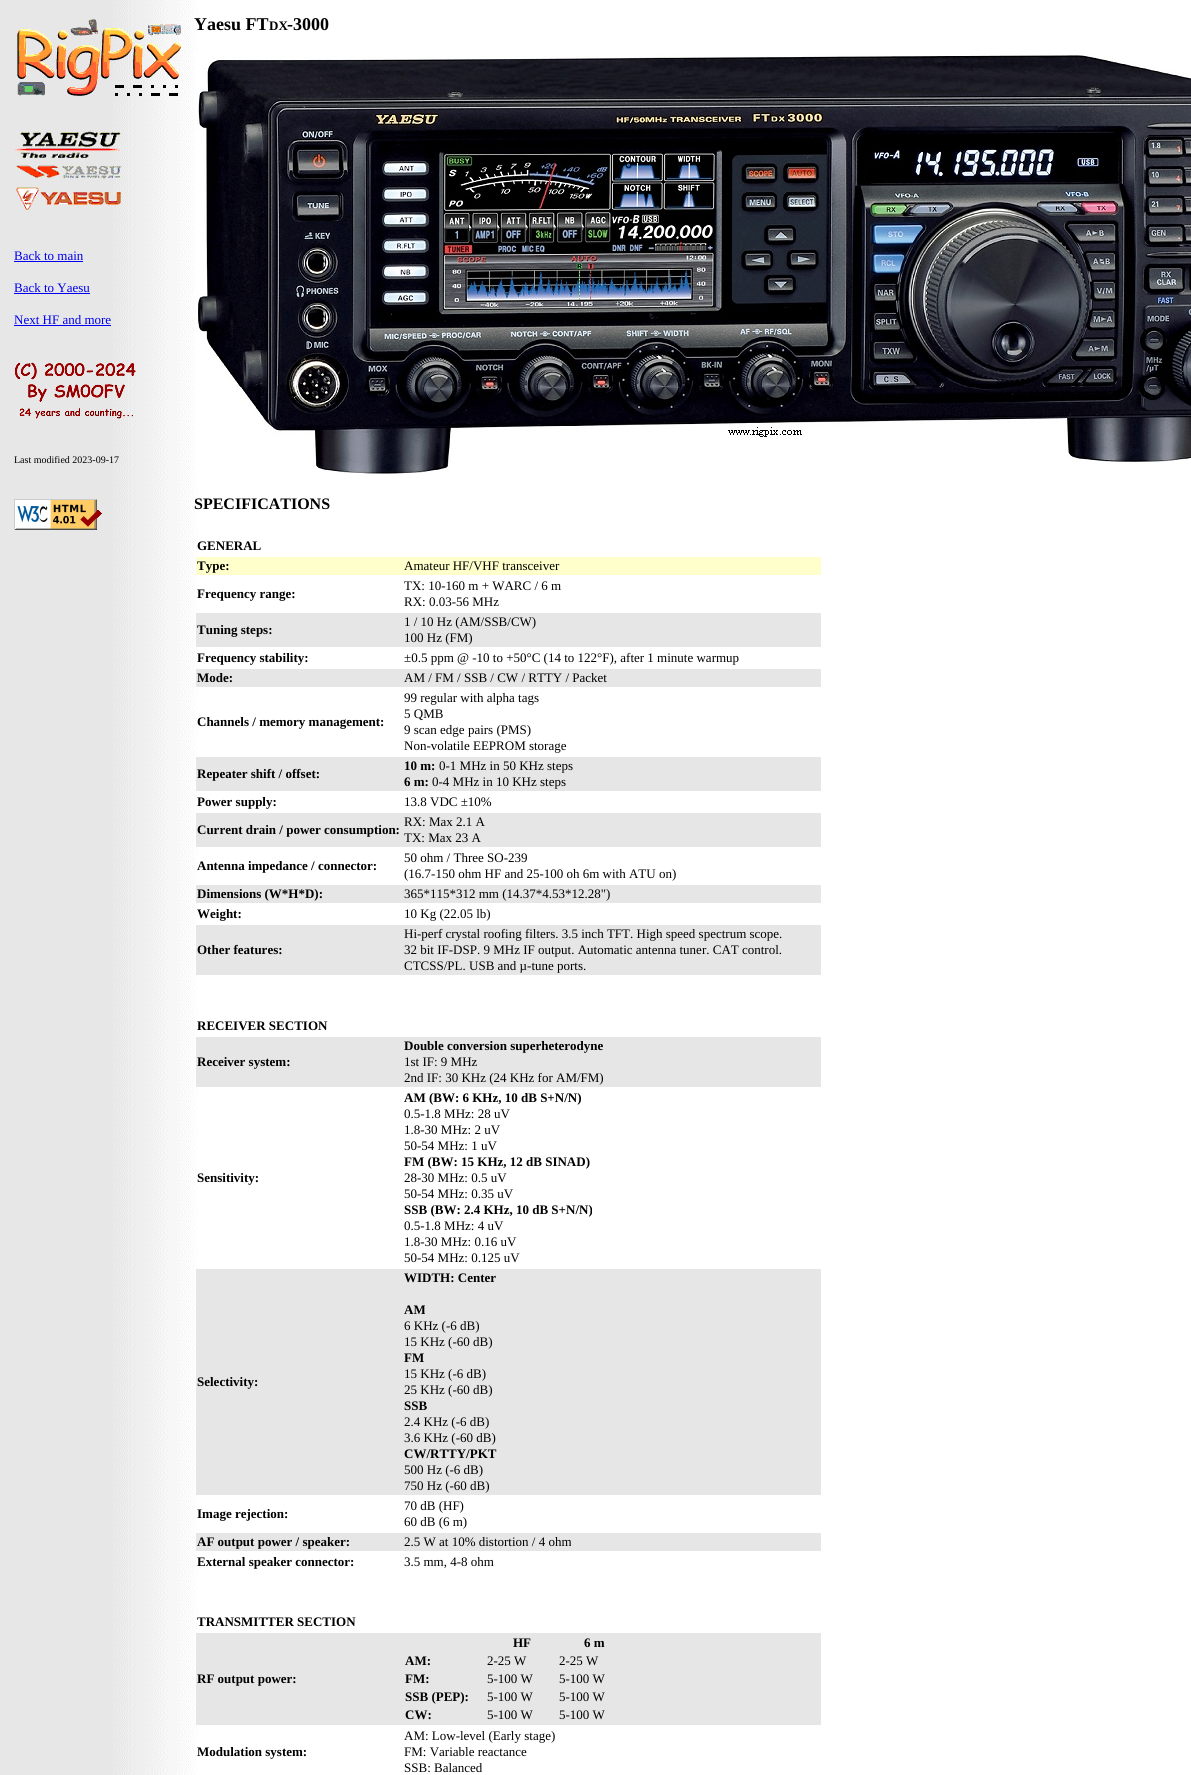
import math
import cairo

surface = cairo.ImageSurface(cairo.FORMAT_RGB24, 1191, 1775)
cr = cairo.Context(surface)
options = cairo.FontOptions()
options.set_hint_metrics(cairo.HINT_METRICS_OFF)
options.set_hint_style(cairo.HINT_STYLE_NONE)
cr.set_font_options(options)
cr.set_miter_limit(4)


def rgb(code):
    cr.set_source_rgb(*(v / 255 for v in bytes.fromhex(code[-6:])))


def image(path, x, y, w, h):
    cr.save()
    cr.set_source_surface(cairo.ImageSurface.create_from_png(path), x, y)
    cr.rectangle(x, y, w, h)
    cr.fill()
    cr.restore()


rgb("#ffffff")
cr.paint()
image("img/1.png", 0, 0, 198, 1775)
image("img/2.png", 17, 19, 164, 77)
image("img/3.png", 15, 131, 107, 79)
for x, y, w, h, color in [
    (14, 261, 69, 1, "#0000ee"),
    (14, 293, 76, 1, "#0000ee"),
    (14, 325, 97, 1, "#0000ee"),
]:
    rgb(color)
    cr.rectangle(x, y, w, h)
    cr.fill()
image("img/4.png", 15, 362, 121, 57)
image("img/5.png", 14, 499, 88, 31)
image("img/6.png", 194, 53, 997, 421)
for x, y, w, h, color in [
    (196, 557, 625, 18, "#ffffcc"),
    (196, 613, 625, 34, "#e6e6e6"),
    (196, 669, 625, 18, "#e6e6e6"),
    (196, 757, 625, 34, "#e6e6e6"),
    (196, 813, 625, 34, "#e6e6e6"),
    (196, 885, 625, 18, "#e6e6e6"),
    (196, 925, 625, 50, "#e6e6e6"),
    (196, 1037, 625, 50, "#e6e6e6"),
    (196, 1269, 625, 226, "#e6e6e6"),
    (196, 1533, 625, 18, "#e6e6e6"),
    (196, 1633, 625, 92, "#e6e6e6"),
]:
    rgb(color)
    cr.rectangle(x, y, w, h)
    cr.fill()
cr.select_font_face("Liberation Serif")
cr.set_font_size(13)
rgb("#0000ee")
for x, y, s in [
    (14, 260, "Back to main"),
    (14, 292, "Back to Yaesu"),
    (14, 324, "Next HF and more"),
]:
    cr.move_to(x, y)
    cr.show_text(s)
cr.set_font_size(10)
rgb("#000000")
cr.move_to(14, 463)
cr.show_text("Last modified 2023-09-17")
cr.select_font_face("Liberation Serif", cairo.FONT_SLANT_NORMAL, cairo.FONT_WEIGHT_BOLD)
cr.set_font_size(18)
cr.move_to(194, 30)
cr.show_text("Yaesu FT")
cr.set_font_size(13)
cr.move_to(269, 30)
cr.show_text("DX")
cr.set_font_size(18)
cr.move_to(287, 30)
cr.show_text("-3000")
cr.set_font_size(16)
cr.move_to(194, 509)
cr.show_text("SPECIFICATIONS")
cr.set_font_size(13)
cr.move_to(197, 550)
cr.show_text("GENERAL")
cr.move_to(197, 570)
cr.show_text("Type:")
cr.select_font_face("Liberation Serif")
cr.move_to(404, 570)
cr.show_text("Amateur HF/VHF transceiver")
cr.select_font_face("Liberation Serif", cairo.FONT_SLANT_NORMAL, cairo.FONT_WEIGHT_BOLD)
cr.move_to(197, 598)
cr.show_text("Frequency range:")
cr.select_font_face("Liberation Serif")
cr.move_to(404, 590)
cr.show_text("TX: 10-160 m + WARC / 6 m")
cr.move_to(404, 606)
cr.show_text("RX: 0.03-56 MHz")
cr.select_font_face("Liberation Serif", cairo.FONT_SLANT_NORMAL, cairo.FONT_WEIGHT_BOLD)
cr.move_to(197, 634)
cr.show_text("Tuning steps:")
cr.select_font_face("Liberation Serif")
cr.move_to(404, 626)
cr.show_text("1 / 10 Hz (AM/SSB/CW)")
cr.move_to(404, 642)
cr.show_text("100 Hz (FM)")
cr.select_font_face("Liberation Serif", cairo.FONT_SLANT_NORMAL, cairo.FONT_WEIGHT_BOLD)
cr.move_to(197, 662)
cr.show_text("Frequency stability:")
cr.select_font_face("Liberation Serif")
cr.move_to(404, 662)
cr.show_text("±0.5 ppm @ -10 to +50°C (14 to 122°F), after 1 minute warmup")
cr.select_font_face("Liberation Serif", cairo.FONT_SLANT_NORMAL, cairo.FONT_WEIGHT_BOLD)
cr.move_to(197, 682)
cr.show_text("Mode:")
cr.select_font_face("Liberation Serif")
cr.move_to(404, 682)
cr.show_text("AM / FM / SSB / CW / RTTY / Packet")
cr.select_font_face("Liberation Serif", cairo.FONT_SLANT_NORMAL, cairo.FONT_WEIGHT_BOLD)
cr.move_to(197, 726)
cr.show_text("Channels / memory management:")
cr.select_font_face("Liberation Serif")
for x, y, s in [
    (404, 702, "99 regular with alpha tags"),
    (404, 718, "5 QMB"),
    (404, 734, "9 scan edge pairs (PMS)"),
    (404, 750, "Non-volatile EEPROM storage"),
]:
    cr.move_to(x, y)
    cr.show_text(s)
cr.select_font_face("Liberation Serif", cairo.FONT_SLANT_NORMAL, cairo.FONT_WEIGHT_BOLD)
cr.move_to(197, 778)
cr.show_text("Repeater shift / offset:")
cr.move_to(404, 770)
cr.show_text("10 m:")
cr.select_font_face("Liberation Serif")
cr.move_to(439, 770)
cr.show_text("0-1 MHz in 50 KHz steps")
cr.select_font_face("Liberation Serif", cairo.FONT_SLANT_NORMAL, cairo.FONT_WEIGHT_BOLD)
cr.move_to(404, 786)
cr.show_text("6 m:")
cr.select_font_face("Liberation Serif")
cr.move_to(432, 786)
cr.show_text("0-4 MHz in 10 KHz steps")
cr.select_font_face("Liberation Serif", cairo.FONT_SLANT_NORMAL, cairo.FONT_WEIGHT_BOLD)
cr.move_to(197, 806)
cr.show_text("Power supply:")
cr.select_font_face("Liberation Serif")
cr.move_to(404, 806)
cr.show_text("13.8 VDC ±10%")
cr.select_font_face("Liberation Serif", cairo.FONT_SLANT_NORMAL, cairo.FONT_WEIGHT_BOLD)
cr.move_to(197, 834)
cr.show_text("Current drain / power consumption:")
cr.select_font_face("Liberation Serif")
cr.move_to(404, 826)
cr.show_text("RX: Max 2.1 A")
cr.move_to(404, 842)
cr.show_text("TX: Max 23 A")
cr.select_font_face("Liberation Serif", cairo.FONT_SLANT_NORMAL, cairo.FONT_WEIGHT_BOLD)
cr.move_to(197, 870)
cr.show_text("Antenna impedance / connector:")
cr.select_font_face("Liberation Serif")
cr.move_to(404, 862)
cr.show_text("50 ohm / Three SO-239")
cr.move_to(404, 878)
cr.show_text("(16.7-150 ohm HF and 25-100 oh 6m with ATU on)")
cr.select_font_face("Liberation Serif", cairo.FONT_SLANT_NORMAL, cairo.FONT_WEIGHT_BOLD)
cr.move_to(197, 898)
cr.show_text("Dimensions (W*H*D):")
cr.select_font_face("Liberation Serif")
cr.move_to(404, 898)
cr.show_text("365*115*312 mm (14.37*4.53*12.28\")")
cr.select_font_face("Liberation Serif", cairo.FONT_SLANT_NORMAL, cairo.FONT_WEIGHT_BOLD)
cr.move_to(197, 918)
cr.show_text("Weight:")
cr.select_font_face("Liberation Serif")
cr.move_to(404, 918)
cr.show_text("10 Kg (22.05 lb)")
cr.select_font_face("Liberation Serif", cairo.FONT_SLANT_NORMAL, cairo.FONT_WEIGHT_BOLD)
cr.move_to(197, 954)
cr.show_text("Other features:")
cr.select_font_face("Liberation Serif")
for x, y, s in [
    (404, 938, "Hi-perf crystal roofing filters. 3.5 inch TFT. High speed spectrum scope."),
    (404, 954, "32 bit IF-DSP. 9 MHz IF output. Automatic antenna tuner. CAT control."),
    (404, 970, "CTCSS/PL. USB and µ-tune ports."),
]:
    cr.move_to(x, y)
    cr.show_text(s)
cr.select_font_face("Liberation Serif", cairo.FONT_SLANT_NORMAL, cairo.FONT_WEIGHT_BOLD)
for x, y, s in [
    (197, 1030, "RECEIVER SECTION"),
    (197, 1066, "Receiver system:"),
    (404, 1050, "Double conversion superheterodyne"),
]:
    cr.move_to(x, y)
    cr.show_text(s)
cr.select_font_face("Liberation Serif")
cr.move_to(404, 1066)
cr.show_text("1st IF: 9 MHz")
cr.move_to(404, 1082)
cr.show_text("2nd IF: 30 KHz (24 KHz for AM/FM)")
cr.select_font_face("Liberation Serif", cairo.FONT_SLANT_NORMAL, cairo.FONT_WEIGHT_BOLD)
cr.move_to(197, 1182)
cr.show_text("Sensitivity:")
cr.move_to(404, 1102)
cr.show_text("AM (BW: 6 KHz, 10 dB S+N/N)")
cr.select_font_face("Liberation Serif")
for x, y, s in [
    (404, 1118, "0.5-1.8 MHz: 28 uV"),
    (404, 1134, "1.8-30 MHz: 2 uV"),
    (404, 1150, "50-54 MHz: 1 uV"),
]:
    cr.move_to(x, y)
    cr.show_text(s)
cr.select_font_face("Liberation Serif", cairo.FONT_SLANT_NORMAL, cairo.FONT_WEIGHT_BOLD)
cr.move_to(404, 1166)
cr.show_text("FM (BW: 15 KHz, 12 dB SINAD)")
cr.select_font_face("Liberation Serif")
cr.move_to(404, 1182)
cr.show_text("28-30 MHz: 0.5 uV")
cr.move_to(404, 1198)
cr.show_text("50-54 MHz: 0.35 uV")
cr.select_font_face("Liberation Serif", cairo.FONT_SLANT_NORMAL, cairo.FONT_WEIGHT_BOLD)
cr.move_to(404, 1214)
cr.show_text("SSB (BW: 2.4 KHz, 10 dB S+N/N)")
cr.select_font_face("Liberation Serif")
for x, y, s in [
    (404, 1230, "0.5-1.8 MHz: 4 uV"),
    (404, 1246, "1.8-30 MHz: 0.16 uV"),
    (404, 1262, "50-54 MHz: 0.125 uV"),
]:
    cr.move_to(x, y)
    cr.show_text(s)
cr.select_font_face("Liberation Serif", cairo.FONT_SLANT_NORMAL, cairo.FONT_WEIGHT_BOLD)
for x, y, s in [
    (197, 1386, "Selectivity:"),
    (404, 1282, "WIDTH: Center"),
    (404, 1314, "AM"),
]:
    cr.move_to(x, y)
    cr.show_text(s)
cr.select_font_face("Liberation Serif")
cr.move_to(404, 1330)
cr.show_text("6 KHz (-6 dB)")
cr.move_to(404, 1346)
cr.show_text("15 KHz (-60 dB)")
cr.select_font_face("Liberation Serif", cairo.FONT_SLANT_NORMAL, cairo.FONT_WEIGHT_BOLD)
cr.move_to(404, 1362)
cr.show_text("FM")
cr.select_font_face("Liberation Serif")
cr.move_to(404, 1378)
cr.show_text("15 KHz (-6 dB)")
cr.move_to(404, 1394)
cr.show_text("25 KHz (-60 dB)")
cr.select_font_face("Liberation Serif", cairo.FONT_SLANT_NORMAL, cairo.FONT_WEIGHT_BOLD)
cr.move_to(404, 1410)
cr.show_text("SSB")
cr.select_font_face("Liberation Serif")
cr.move_to(404, 1426)
cr.show_text("2.4 KHz (-6 dB)")
cr.move_to(404, 1442)
cr.show_text("3.6 KHz (-60 dB)")
cr.select_font_face("Liberation Serif", cairo.FONT_SLANT_NORMAL, cairo.FONT_WEIGHT_BOLD)
cr.move_to(404, 1458)
cr.show_text("CW/RTTY/PKT")
cr.select_font_face("Liberation Serif")
cr.move_to(404, 1474)
cr.show_text("500 Hz (-6 dB)")
cr.move_to(404, 1490)
cr.show_text("750 Hz (-60 dB)")
cr.select_font_face("Liberation Serif", cairo.FONT_SLANT_NORMAL, cairo.FONT_WEIGHT_BOLD)
cr.move_to(197, 1518)
cr.show_text("Image rejection:")
cr.select_font_face("Liberation Serif")
cr.move_to(404, 1510)
cr.show_text("70 dB (HF)")
cr.move_to(404, 1526)
cr.show_text("60 dB (6 m)")
cr.select_font_face("Liberation Serif", cairo.FONT_SLANT_NORMAL, cairo.FONT_WEIGHT_BOLD)
cr.move_to(197, 1546)
cr.show_text("AF output power / speaker:")
cr.select_font_face("Liberation Serif")
cr.move_to(404, 1546)
cr.show_text("2.5 W at 10% distortion / 4 ohm")
cr.select_font_face("Liberation Serif", cairo.FONT_SLANT_NORMAL, cairo.FONT_WEIGHT_BOLD)
cr.move_to(197, 1566)
cr.show_text("External speaker connector:")
cr.select_font_face("Liberation Serif")
cr.move_to(404, 1566)
cr.show_text("3.5 mm, 4-8 ohm")
cr.select_font_face("Liberation Serif", cairo.FONT_SLANT_NORMAL, cairo.FONT_WEIGHT_BOLD)
for x, y, s in [
    (197, 1626, "TRANSMITTER SECTION"),
    (197, 1683, "RF output power:"),
    (513, 1647, "HF"),
    (584, 1647, "6 m"),
    (405, 1665, "AM:"),
]:
    cr.move_to(x, y)
    cr.show_text(s)
cr.select_font_face("Liberation Serif")
cr.move_to(487, 1665)
cr.show_text("2-25 W")
cr.move_to(559, 1665)
cr.show_text("2-25 W")
cr.select_font_face("Liberation Serif", cairo.FONT_SLANT_NORMAL, cairo.FONT_WEIGHT_BOLD)
cr.move_to(405, 1683)
cr.show_text("FM:")
cr.select_font_face("Liberation Serif")
cr.move_to(487, 1683)
cr.show_text("5-100 W")
cr.move_to(559, 1683)
cr.show_text("5-100 W")
cr.select_font_face("Liberation Serif", cairo.FONT_SLANT_NORMAL, cairo.FONT_WEIGHT_BOLD)
cr.move_to(405, 1701)
cr.show_text("SSB (PEP):")
cr.select_font_face("Liberation Serif")
cr.move_to(487, 1701)
cr.show_text("5-100 W")
cr.move_to(559, 1701)
cr.show_text("5-100 W")
cr.select_font_face("Liberation Serif", cairo.FONT_SLANT_NORMAL, cairo.FONT_WEIGHT_BOLD)
cr.move_to(405, 1719)
cr.show_text("CW:")
cr.select_font_face("Liberation Serif")
cr.move_to(487, 1719)
cr.show_text("5-100 W")
cr.move_to(559, 1719)
cr.show_text("5-100 W")
cr.select_font_face("Liberation Serif", cairo.FONT_SLANT_NORMAL, cairo.FONT_WEIGHT_BOLD)
cr.move_to(197, 1756)
cr.show_text("Modulation system:")
cr.select_font_face("Liberation Serif")
for x, y, s in [
    (404, 1740, "AM: Low-level (Early stage)"),
    (404, 1756, "FM: Variable reactance"),
    (404, 1772, "SSB: Balanced"),
]:
    cr.move_to(x, y)
    cr.show_text(s)
surface.write_to_png("page.png")
